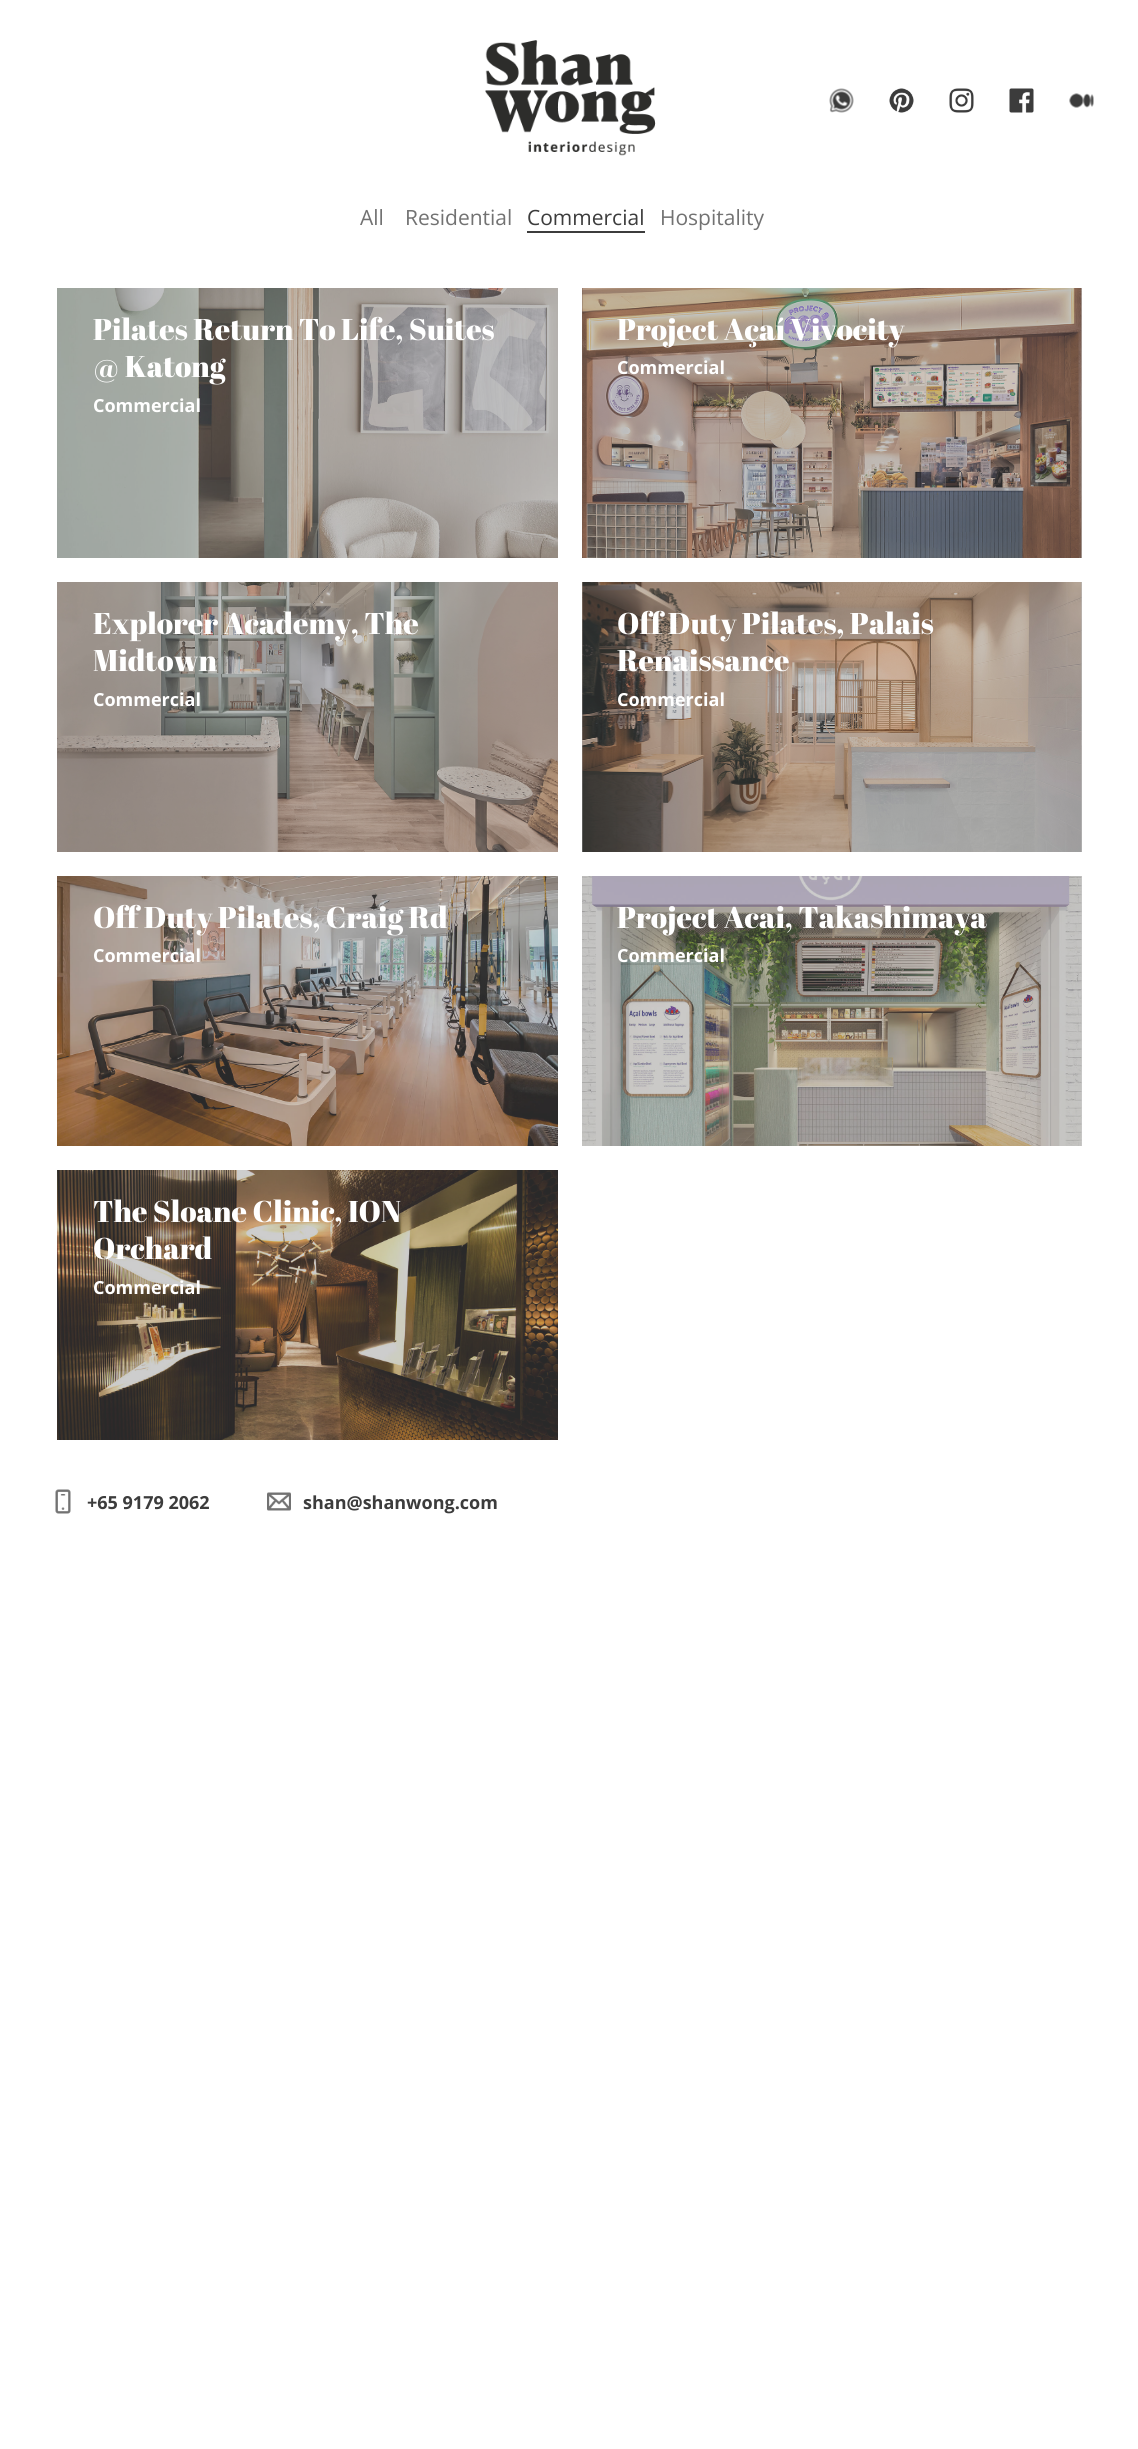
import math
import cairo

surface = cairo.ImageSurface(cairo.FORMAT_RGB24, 1138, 2449)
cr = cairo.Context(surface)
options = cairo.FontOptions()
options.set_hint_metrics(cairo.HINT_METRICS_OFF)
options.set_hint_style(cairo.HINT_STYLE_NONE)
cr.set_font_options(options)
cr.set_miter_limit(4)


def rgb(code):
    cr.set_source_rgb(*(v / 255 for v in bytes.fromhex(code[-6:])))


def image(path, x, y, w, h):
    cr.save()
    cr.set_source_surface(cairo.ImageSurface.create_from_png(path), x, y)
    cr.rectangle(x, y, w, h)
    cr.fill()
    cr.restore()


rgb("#ffffff")
cr.paint()
for x, y, w, h, color in [
    (1081, 876, 1, 270, "#cdcdcd"),
    (1081, 582, 1, 270, "#cdcdcd"),
    (1081, 288, 1, 270, "#cdcdcd"),
]:
    rgb(color)
    cr.rectangle(x, y, w, h)
    cr.fill()
image("img/1.png", 485, 40, 171, 116)
image("img/2.png", 829, 88, 25, 25)
image("img/3.png", 889, 88, 25, 25)
image("img/4.png", 949, 88, 25, 25)
image("img/5.png", 1009, 88, 25, 25)
image("img/6.png", 1069, 93, 25, 15)
rgb("#3c3c3c")
cr.rectangle(527, 231, 118, 2)
cr.fill()
image("img/7.png", 57, 288, 501, 270)
image("img/8.png", 582, 288, 500, 270)
image("img/9.png", 57, 582, 501, 270)
image("img/10.png", 582, 582, 500, 270)
image("img/11.png", 57, 876, 501, 270)
image("img/12.png", 582, 876, 500, 270)
image("img/13.png", 57, 1170, 501, 270)
image("img/14.png", 55, 1489, 16, 25)
image("img/15.png", 267, 1492, 24, 19)
cr.select_font_face("Open Sans")
cr.set_font_size(21)
rgb("#727272")
cr.move_to(360, 225)
cr.show_text("All")
cr.move_to(405, 225)
cr.show_text("Residential")
rgb("#3c3c3c")
cr.move_to(527, 225)
cr.show_text("Commercial")
rgb("#727272")
cr.move_to(660, 225)
cr.show_text("Hospitality")
cr.select_font_face("Abril Fatface")
cr.set_font_size(30)
rgb("#ffffff")
cr.move_to(93, 340)
cr.show_text("Pilates Return To Life, Suites")
cr.move_to(93, 377)
cr.show_text("@ Katong")
cr.select_font_face("Open Sans", cairo.FONT_SLANT_NORMAL, cairo.FONT_WEIGHT_BOLD)
cr.set_font_size(18)
cr.move_to(93, 412)
cr.show_text("Commercial")
cr.select_font_face("Abril Fatface")
cr.set_font_size(30)
cr.move_to(617, 340)
cr.show_text("Project Açaí Vivocity")
cr.select_font_face("Open Sans", cairo.FONT_SLANT_NORMAL, cairo.FONT_WEIGHT_BOLD)
cr.set_font_size(18)
cr.move_to(617, 374)
cr.show_text("Commercial")
cr.select_font_face("Abril Fatface")
cr.set_font_size(30)
cr.move_to(93, 634)
cr.show_text("Explorer Academy, The")
cr.move_to(93, 671)
cr.show_text("Midtown")
cr.select_font_face("Open Sans", cairo.FONT_SLANT_NORMAL, cairo.FONT_WEIGHT_BOLD)
cr.set_font_size(18)
cr.move_to(93, 706)
cr.show_text("Commercial")
cr.select_font_face("Abril Fatface")
cr.set_font_size(30)
cr.move_to(617, 634)
cr.show_text("Off Duty Pilates, Palais")
cr.move_to(617, 671)
cr.show_text("Renaissance")
cr.select_font_face("Open Sans", cairo.FONT_SLANT_NORMAL, cairo.FONT_WEIGHT_BOLD)
cr.set_font_size(18)
cr.move_to(617, 706)
cr.show_text("Commercial")
cr.select_font_face("Abril Fatface")
cr.set_font_size(30)
cr.move_to(93, 928)
cr.show_text("Off Duty Pilates, Craig Rd")
cr.select_font_face("Open Sans", cairo.FONT_SLANT_NORMAL, cairo.FONT_WEIGHT_BOLD)
cr.set_font_size(18)
cr.move_to(93, 962)
cr.show_text("Commercial")
cr.select_font_face("Abril Fatface")
cr.set_font_size(30)
cr.move_to(617, 928)
cr.show_text("Project Acai, Takashimaya")
cr.select_font_face("Open Sans", cairo.FONT_SLANT_NORMAL, cairo.FONT_WEIGHT_BOLD)
cr.set_font_size(18)
cr.move_to(617, 962)
cr.show_text("Commercial")
cr.select_font_face("Abril Fatface")
cr.set_font_size(30)
cr.move_to(93, 1222)
cr.show_text("The Sloane Clinic, ION")
cr.move_to(93, 1259)
cr.show_text("Orchard")
cr.select_font_face("Open Sans", cairo.FONT_SLANT_NORMAL, cairo.FONT_WEIGHT_BOLD)
cr.set_font_size(18)
cr.move_to(93, 1294)
cr.show_text("Commercial")
rgb("#3c3c3c")
cr.move_to(87, 1509)
cr.show_text("+65 9179 2062")
cr.move_to(303, 1509)
cr.show_text("shan@shanwong.com")
surface.write_to_png("page.png")
